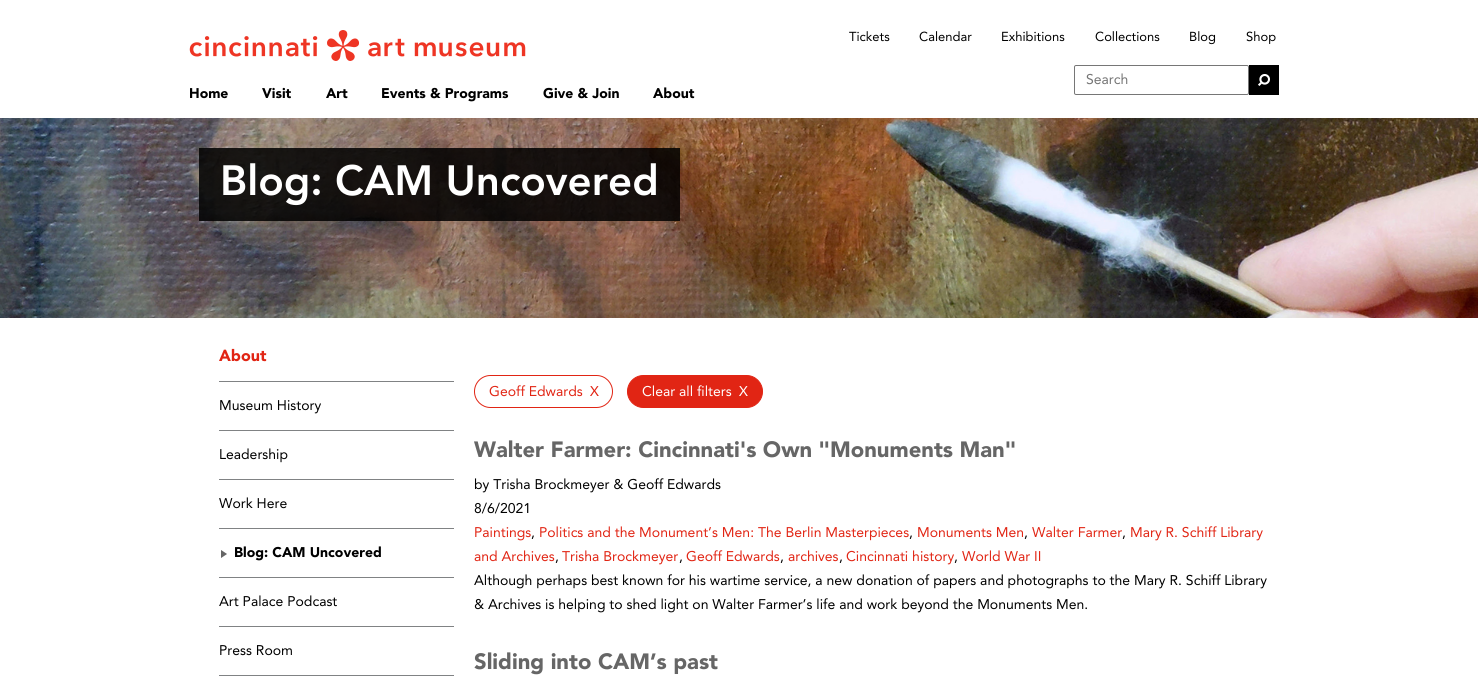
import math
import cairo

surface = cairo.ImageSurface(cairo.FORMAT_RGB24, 1478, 681)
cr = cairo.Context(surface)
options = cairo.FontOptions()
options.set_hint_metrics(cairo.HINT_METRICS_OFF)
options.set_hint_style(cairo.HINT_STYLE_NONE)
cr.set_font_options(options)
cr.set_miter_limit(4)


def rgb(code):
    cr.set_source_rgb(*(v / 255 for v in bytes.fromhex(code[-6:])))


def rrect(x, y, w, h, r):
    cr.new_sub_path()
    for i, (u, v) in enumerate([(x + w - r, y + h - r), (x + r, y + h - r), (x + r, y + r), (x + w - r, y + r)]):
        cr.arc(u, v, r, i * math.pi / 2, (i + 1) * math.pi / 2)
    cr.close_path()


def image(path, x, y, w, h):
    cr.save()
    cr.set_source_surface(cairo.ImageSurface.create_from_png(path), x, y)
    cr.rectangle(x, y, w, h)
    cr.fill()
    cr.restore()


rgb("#ffffff")
cr.paint()
image("img/1.png", 189, 30, 337, 31)
rrect(1074.5, 65.5, 174, 29, 1.5)
rgb("#767676")
cr.set_line_width(1)
cr.stroke()
rgb("#000000")
cr.rectangle(1249, 65, 30, 30)
cr.fill()
image("img/2.png", 1258, 74, 12, 12)
image("img/3.png", 0, 118, 1478, 200)
cr.set_source_rgba(0, 0, 0, 0.85)
cr.rectangle(199, 148, 481, 73)
cr.fill()
rgb("#808284")
cr.rectangle(219, 381, 235, 1)
cr.rectangle(219, 430, 235, 1)
cr.rectangle(219, 479, 235, 1)
cr.rectangle(219, 528, 235, 1)
cr.fill()
image("img/4.png", 221, 550, 6, 8)
for x, y, w, h, color in [
    (219, 577, 235, 1, "#808284"),
    (219, 626, 235, 1, "#808284"),
    (219, 675, 235, 1, "#808284"),
]:
    rgb(color)
    cr.rectangle(x, y, w, h)
    cr.fill()
rrect(474.5, 375.5, 138, 32, 16)
rgb("#e12514")
cr.stroke()
rrect(627.5, 375.5, 135, 32, 16)
cr.fill_preserve()
cr.stroke()
cr.select_font_face("Avenir")
cr.set_font_size(13)
rgb("#000000")
for x, y, s in [
    (849, 41, "Tickets"),
    (919, 41, "Calendar"),
    (1001, 41, "Exhibitions"),
    (1095, 41, "Collections"),
    (1189, 41, "Blog"),
    (1246, 41, "Shop"),
]:
    cr.move_to(x, y)
    cr.show_text(s)
cr.set_font_size(14)
rgb("#757575")
cr.move_to(1086, 84)
cr.show_text("Search")
cr.select_font_face("Avenir Black")
rgb("#000000")
for x, y, s in [
    (189, 98, "Home"),
    (262, 98, "Visit"),
    (326, 98, "Art"),
    (381, 98, "Events & Programs"),
    (543, 98, "Give & Join"),
    (653, 98, "About"),
]:
    cr.move_to(x, y)
    cr.show_text(s)
cr.select_font_face("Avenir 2 Black")
cr.set_font_size(42)
rgb("#ffffff")
cr.move_to(220, 195)
cr.show_text("Blog: CAM Uncovered")
cr.select_font_face("Avenir Black")
cr.set_font_size(16)
rgb("#e12514")
cr.move_to(219, 361)
cr.show_text("About")
cr.select_font_face("Avenir")
cr.set_font_size(14)
rgb("#000000")
for x, y, s in [
    (219, 410, "Museum History"),
    (219, 459, "Leadership"),
    (219, 508, "Work Here"),
]:
    cr.move_to(x, y)
    cr.show_text(s)
cr.select_font_face("Avenir Black")
cr.move_to(234, 557)
cr.show_text("Blog: CAM Uncovered")
cr.select_font_face("Avenir")
cr.move_to(219, 606)
cr.show_text("Art Palace Podcast")
cr.move_to(219, 655)
cr.show_text("Press Room")
rgb("#e12514")
cr.move_to(489, 396)
cr.show_text("Geoff Edwards")
cr.move_to(590, 396)
cr.show_text("X")
rgb("#ffffff")
cr.move_to(642, 396)
cr.show_text("Clear all filters")
cr.move_to(739, 396)
cr.show_text("X")
cr.select_font_face("Avenir Black")
cr.set_font_size(22)
rgb("#666666")
cr.move_to(474, 457)
cr.show_text("Walter Farmer: Cincinnati's Own \"Monuments Man\"")
cr.select_font_face("Avenir")
cr.set_font_size(14)
rgb("#000000")
cr.move_to(474, 489)
cr.show_text("by Trisha Brockmeyer & Geoff Edwards")
cr.move_to(474, 513)
cr.show_text("8/6/2021")
rgb("#e12514")
cr.move_to(474, 537)
cr.show_text("Paintings")
rgb("#000000")
cr.move_to(531, 537)
cr.show_text(",")
rgb("#e12514")
cr.move_to(539, 537)
cr.show_text("Politics and the Monument’s Men: The Berlin Masterpieces")
rgb("#000000")
cr.move_to(909, 537)
cr.show_text(",")
rgb("#e12514")
cr.move_to(917, 537)
cr.show_text("Monuments Men")
rgb("#000000")
cr.move_to(1024, 537)
cr.show_text(",")
rgb("#e12514")
cr.move_to(1032, 537)
cr.show_text("Walter Farmer")
rgb("#000000")
cr.move_to(1122, 537)
cr.show_text(",")
rgb("#e12514")
cr.move_to(1130, 537)
cr.show_text("Mary R. Schiff Library")
cr.move_to(474, 561)
cr.show_text("and Archives")
rgb("#000000")
cr.move_to(555, 561)
cr.show_text(",")
rgb("#e12514")
cr.move_to(562, 561)
cr.show_text("Trisha Brockmeyer")
rgb("#000000")
cr.move_to(679, 561)
cr.show_text(",")
rgb("#e12514")
cr.move_to(686, 561)
cr.show_text("Geoff Edwards")
rgb("#000000")
cr.move_to(780, 561)
cr.show_text(",")
rgb("#e12514")
cr.move_to(788, 561)
cr.show_text("archives")
rgb("#000000")
cr.move_to(839, 561)
cr.show_text(",")
rgb("#e12514")
cr.move_to(846, 561)
cr.show_text("Cincinnati history")
rgb("#000000")
cr.move_to(954, 561)
cr.show_text(",")
rgb("#e12514")
cr.move_to(962, 561)
cr.show_text("World War II")
rgb("#000000")
cr.move_to(474, 585)
cr.show_text("Although perhaps best known for his wartime service, a new donation of papers and photographs to the Mary R. Schiff Library")
cr.move_to(474, 609)
cr.show_text("& Archives is helping to shed light on Walter Farmer’s life and work beyond the Monuments Men.")
cr.select_font_face("Avenir Black")
cr.set_font_size(22)
rgb("#666666")
cr.move_to(474, 669)
cr.show_text("Sliding into CAM’s past")
surface.write_to_png("page.png")
